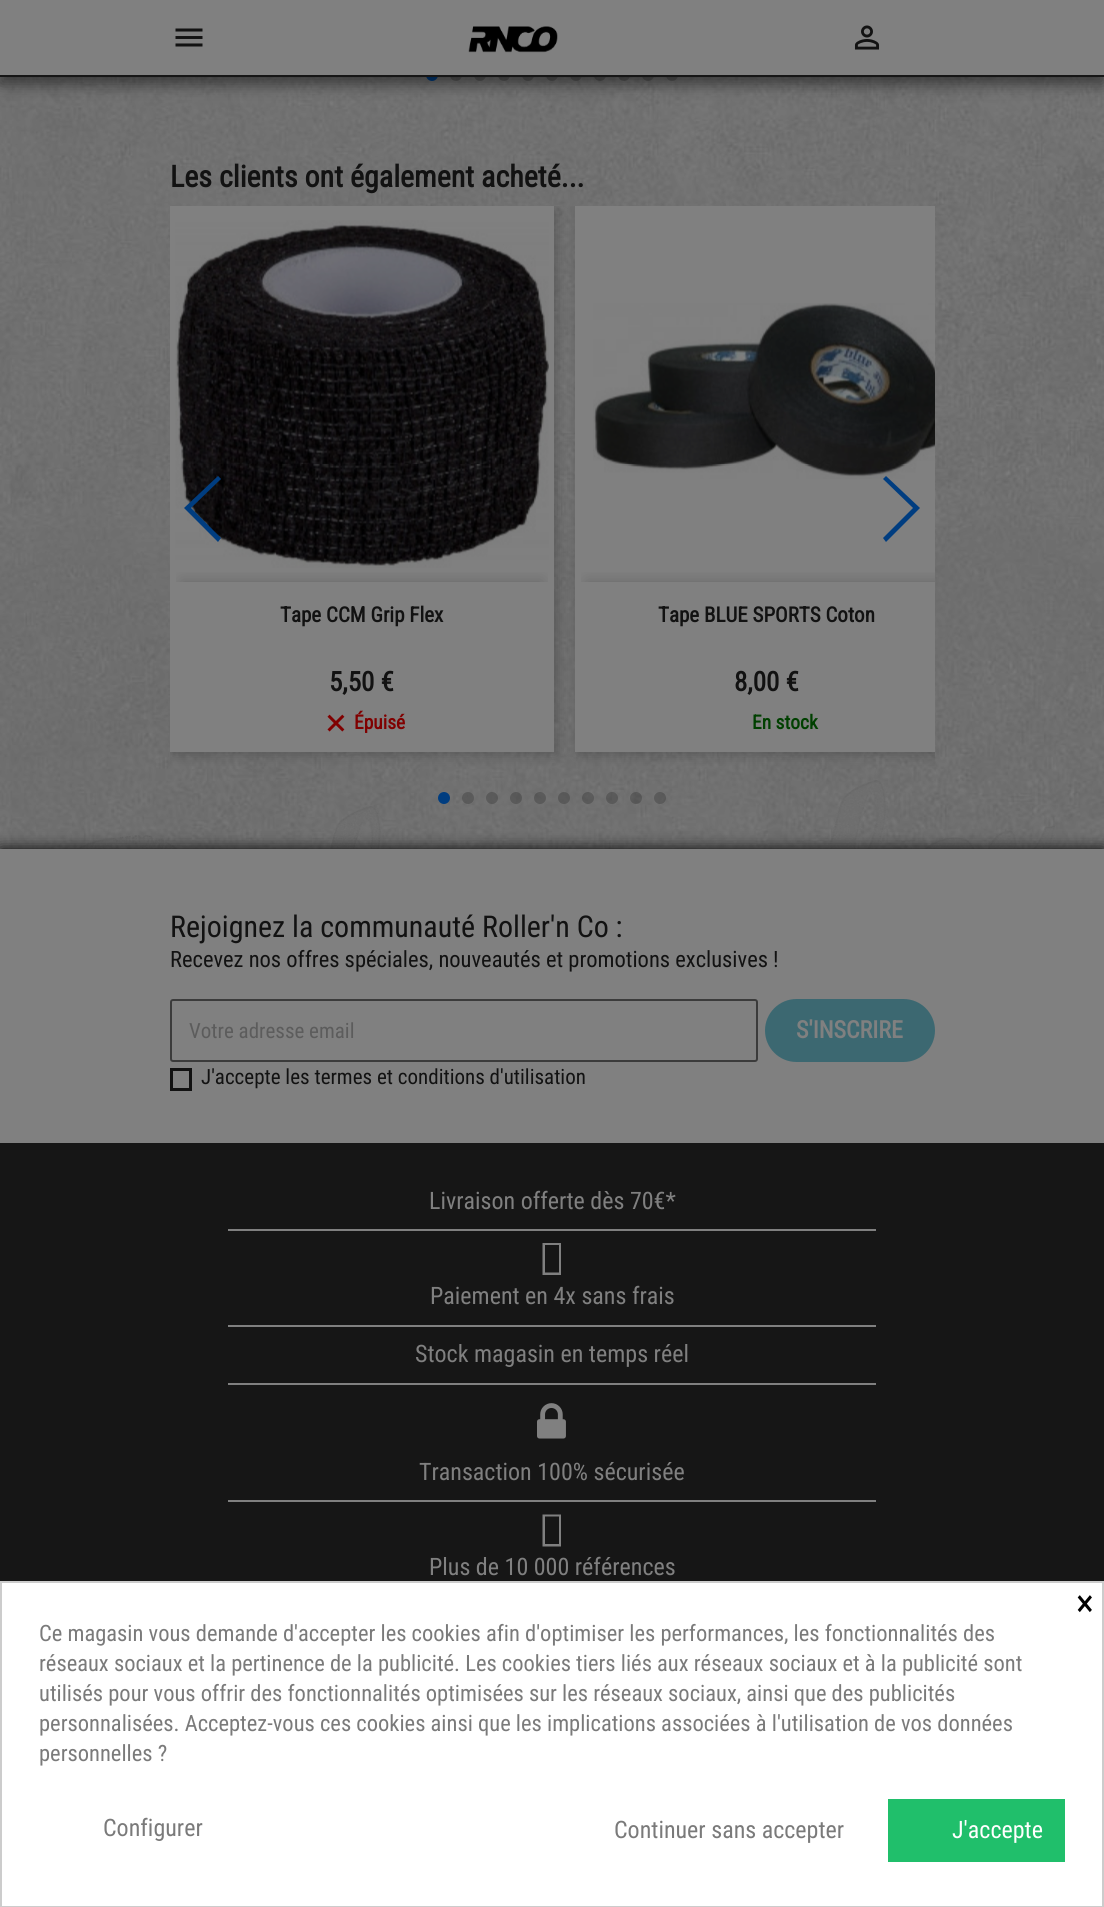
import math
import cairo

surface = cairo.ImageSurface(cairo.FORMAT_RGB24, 1104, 1907)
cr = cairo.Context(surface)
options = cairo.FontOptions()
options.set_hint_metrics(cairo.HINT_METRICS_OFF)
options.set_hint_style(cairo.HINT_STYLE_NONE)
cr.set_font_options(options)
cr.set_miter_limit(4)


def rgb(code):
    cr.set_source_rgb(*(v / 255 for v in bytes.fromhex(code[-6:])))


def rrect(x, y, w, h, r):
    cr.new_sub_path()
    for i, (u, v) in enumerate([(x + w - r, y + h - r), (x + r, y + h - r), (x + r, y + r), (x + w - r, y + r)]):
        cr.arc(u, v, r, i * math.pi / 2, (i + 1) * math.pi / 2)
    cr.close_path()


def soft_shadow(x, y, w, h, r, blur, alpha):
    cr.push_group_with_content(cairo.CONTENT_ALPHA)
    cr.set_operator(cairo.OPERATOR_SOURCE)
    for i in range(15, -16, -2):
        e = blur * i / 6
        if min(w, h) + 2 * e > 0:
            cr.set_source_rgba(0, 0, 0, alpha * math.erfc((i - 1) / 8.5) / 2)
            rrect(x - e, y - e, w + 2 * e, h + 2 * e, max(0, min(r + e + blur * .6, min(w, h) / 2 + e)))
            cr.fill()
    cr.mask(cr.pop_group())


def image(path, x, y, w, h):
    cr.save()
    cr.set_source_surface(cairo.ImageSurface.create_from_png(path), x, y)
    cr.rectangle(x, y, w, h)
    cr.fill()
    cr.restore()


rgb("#ffffff")
cr.paint()
image("img/1.png", 0, 77, 1104, 772)
rgb("#003d80")
cr.arc(432, 75, 6, 0, 2 * math.pi)
cr.fill()
cr.set_source_rgba(0, 0, 0, 0.2)
cr.arc(456, 75, 6, 0, 2 * math.pi)
cr.fill()
cr.arc(480, 75, 6, 0, 2 * math.pi)
cr.fill()
cr.arc(504, 75, 6, 0, 2 * math.pi)
cr.fill()
cr.arc(528, 75, 6, 0, 2 * math.pi)
cr.fill()
cr.arc(552, 75, 6, 0, 2 * math.pi)
cr.fill()
cr.arc(576, 75, 6, 0, 2 * math.pi)
cr.fill()
cr.arc(600, 75, 6, 0, 2 * math.pi)
cr.fill()
cr.arc(624, 75, 6, 0, 2 * math.pi)
cr.fill()
cr.arc(648, 75, 6, 0, 2 * math.pi)
cr.fill()
cr.arc(672, 75, 6, 0, 2 * math.pi)
cr.fill()
rgb("#000000")
soft_shadow(0, 8, 1104, 76, 0, 7.5, 0.5)
rgb("#808080")
cr.rectangle(0, 0, 1104, 75)
cr.fill()
rgb("#161616")
cr.rectangle(0, 75, 1104, 2)
cr.fill()
image("img/2.png", 175, 28, 28, 19)
image("img/3.png", 468, 26, 90, 27)
image("img/4.png", 854, 25, 26, 25)
image("img/5.png", 77, 780, 978, 69)
cr.save()
cr.rectangle(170, 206, 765, 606)
cr.clip()
rgb("#000000")
soft_shadow(173, 209, 384, 546, 0, 6, 0.2)
cr.restore()
rgb("#808080")
cr.rectangle(170, 206, 384, 546)
cr.fill()
image("img/6.png", 175, 220, 374, 348)
rgb("#003d80")
cr.new_path()
cr.move_to(184, 508)
cr.line_to(218, 476)
cr.line_to(221, 479)
cr.line_to(191, 508)
cr.line_to(221, 538)
cr.line_to(218, 542)
cr.close_path()
cr.fill()
cr.save()
cr.rectangle(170, 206, 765, 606)
cr.clip()
rgb("#000000")
soft_shadow(578, 209, 384, 546, 0, 6, 0.2)
cr.restore()
rgb("#808080")
cr.rectangle(575, 206, 360, 546)
cr.fill()
image("img/8.png", 593, 303, 342, 176)
rgb("#003d80")
cr.new_path()
cr.move_to(920, 508)
cr.line_to(886, 542)
cr.line_to(883, 538)
cr.line_to(913, 508)
cr.line_to(883, 479)
cr.line_to(886, 476)
cr.close_path()
cr.fill()
cr.save()
cr.rectangle(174, 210, 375, 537)
cr.clip()
cr.rectangle(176, 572, 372, 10)
cr.clip()
rgb("#000000")
soft_shadow(182, 582, 360, 150, 0, 7.5, 0.2)
cr.restore()
image("img/7.png", 327, 714, 18, 18)
cr.save()
cr.rectangle(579, 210, 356, 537)
cr.clip()
cr.rectangle(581, 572, 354, 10)
cr.clip()
rgb("#000000")
soft_shadow(587, 582, 360, 150, 0, 7.5, 0.2)
cr.restore()
cr.arc(444, 798, 6, 0, 2 * math.pi)
cr.fill()
cr.set_source_rgba(0, 0, 0, 0.2)
cr.arc(468, 798, 6, 0, 2 * math.pi)
cr.fill()
cr.arc(492, 798, 6, 0, 2 * math.pi)
cr.fill()
cr.arc(516, 798, 6, 0, 2 * math.pi)
cr.fill()
cr.arc(540, 798, 6, 0, 2 * math.pi)
cr.fill()
cr.arc(564, 798, 6, 0, 2 * math.pi)
cr.fill()
cr.arc(588, 798, 6, 0, 2 * math.pi)
cr.fill()
cr.arc(612, 798, 6, 0, 2 * math.pi)
cr.fill()
cr.arc(636, 798, 6, 0, 2 * math.pi)
cr.fill()
cr.arc(660, 798, 6, 0, 2 * math.pi)
cr.fill()
rgb("#000000")
soft_shadow(0, 849, 1104, 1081, 0, 7.5, 1)
rgb("#808080")
cr.rectangle(0, 849, 1104, 294)
cr.fill()
rrect(171, 1000, 586, 61, 2)
rgb("#3b3b3b")
cr.stroke()
rgb("#3c6871")
rrect(765, 999, 170, 63, 31.5)
cr.fill()
cr.rectangle(171.5, 1069.5, 19, 20)
rgb("#121212")
cr.set_line_width(3)
cr.stroke()
for x, y, w, h, color in [
    (0, 1143, 1104, 438, "#161616"),
    (228, 1229, 648, 2, "#808080"),
    (228, 1325, 648, 2, "#808080"),
]:
    rgb(color)
    cr.rectangle(x, y, w, h)
    cr.fill()
cr.new_path()
cr.move_to(542.5, 1275)
cr.line_to(542.5, 1243)
cr.line_to(561, 1243)
cr.line_to(561, 1275)
cr.close_path()
cr.move_to(545, 1272.5)
cr.line_to(559, 1272.5)
cr.line_to(559, 1245)
cr.line_to(545, 1245)
cr.close_path()
cr.fill()
cr.rectangle(228, 1383, 648, 2)
cr.fill()
cr.rectangle(228, 1500, 648, 2)
cr.fill()
image("img/9.png", 537, 1403, 29, 36)
cr.new_path()
cr.move_to(542.5, 1546.5)
cr.line_to(542.5, 1514.5)
cr.line_to(561, 1514.5)
cr.line_to(561, 1546.5)
cr.close_path()
cr.move_to(545, 1544)
cr.line_to(559, 1544)
cr.line_to(559, 1516.5)
cr.line_to(545, 1516.5)
cr.close_path()
cr.fill()
rgb("#ffffff")
cr.rectangle(1, 1582, 1102, 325)
cr.fill_preserve()
rgb("#cccccc")
cr.set_line_width(2)
cr.stroke()
rgb("#20bf6b")
cr.rectangle(888, 1799, 177, 63)
cr.fill()
cr.select_font_face("Roboto Condensed", cairo.FONT_SLANT_NORMAL, cairo.FONT_WEIGHT_BOLD)
cr.set_font_size(30)
rgb("#121212")
cr.move_to(170, 187)
cr.show_text("Les clients ont également acheté...")
cr.set_font_size(21)
cr.move_to(280, 622)
cr.show_text("Tape CCM Grip Flex")
cr.set_font_size(27)
cr.move_to(329, 691)
cr.show_text("5,50 €")
cr.set_font_size(19.5)
rgb("#800000")
cr.move_to(354, 729)
cr.show_text("Épuisé")
cr.set_font_size(21)
rgb("#121212")
cr.move_to(658, 622)
cr.show_text("Tape BLUE SPORTS Coton")
cr.set_font_size(27)
cr.move_to(734, 691)
cr.show_text("8,00 €")
cr.set_font_size(19.5)
rgb("#004000")
cr.move_to(752, 729)
cr.show_text("En stock")
cr.select_font_face("Roboto Condensed")
cr.set_font_size(30)
rgb("#121212")
cr.move_to(170, 937)
cr.show_text("Rejoignez la communauté Roller'n Co :")
cr.set_font_size(22.5)
cr.move_to(170, 967)
cr.show_text("Recevez nos offres spéciales, nouveautés et promotions exclusives !")
cr.set_font_size(21)
rgb("#5c5c5c")
cr.move_to(189, 1038)
cr.show_text("Votre adresse email")
cr.select_font_face("Roboto Condensed", cairo.FONT_SLANT_NORMAL, cairo.FONT_WEIGHT_BOLD)
cr.set_font_size(24)
rgb("#808080")
cr.move_to(796, 1038)
cr.show_text("S'INSCRIRE")
cr.select_font_face("Roboto Condensed")
cr.set_font_size(21)
rgb("#121212")
cr.move_to(201, 1084)
cr.show_text("J'accepte les termes et conditions d'utilisation")
cr.set_font_size(24)
rgb("#808080")
for x, y, s in [
    (429, 1209, "Livraison offerte dès 70€*"),
    (430, 1304, "Paiement en 4x sans frais"),
    (415, 1362, "Stock magasin en temps réel"),
    (419, 1480, "Transaction 100% sécurisée"),
    (429, 1575, "Plus de 10 000 références"),
]:
    cr.move_to(x, y)
    cr.show_text(s)
cr.set_font_size(38)
rgb("#000000")
cr.move_to(1076, 1616)
cr.show_text("×")
cr.set_font_size(22.5)
rgb("#7a7a7a")
for x, y, s in [
    (39, 1641, "Ce magasin vous demande d'accepter les cookies afin d'optimiser les performances, les fonctionnalités des"),
    (39, 1671, "réseaux sociaux et la pertinence de la publicité. Les cookies tiers liés aux réseaux sociaux et à la publicité sont"),
    (39, 1701, "utilisés pour vous offrir des fonctionnalités optimisées sur les réseaux sociaux, ainsi que des publicités"),
    (39, 1731, "personnalisées. Acceptez-vous ces cookies ainsi que les implications associées à l'utilisation de vos données"),
    (39, 1761, "personnelles ?"),
]:
    cr.move_to(x, y)
    cr.show_text(s)
cr.set_font_size(24)
cr.move_to(103, 1836)
cr.show_text("Configurer")
cr.move_to(614, 1838)
cr.show_text("Continuer sans accepter")
rgb("#ffffff")
cr.move_to(952, 1838)
cr.show_text("J'accepte")
surface.write_to_png("page.png")
